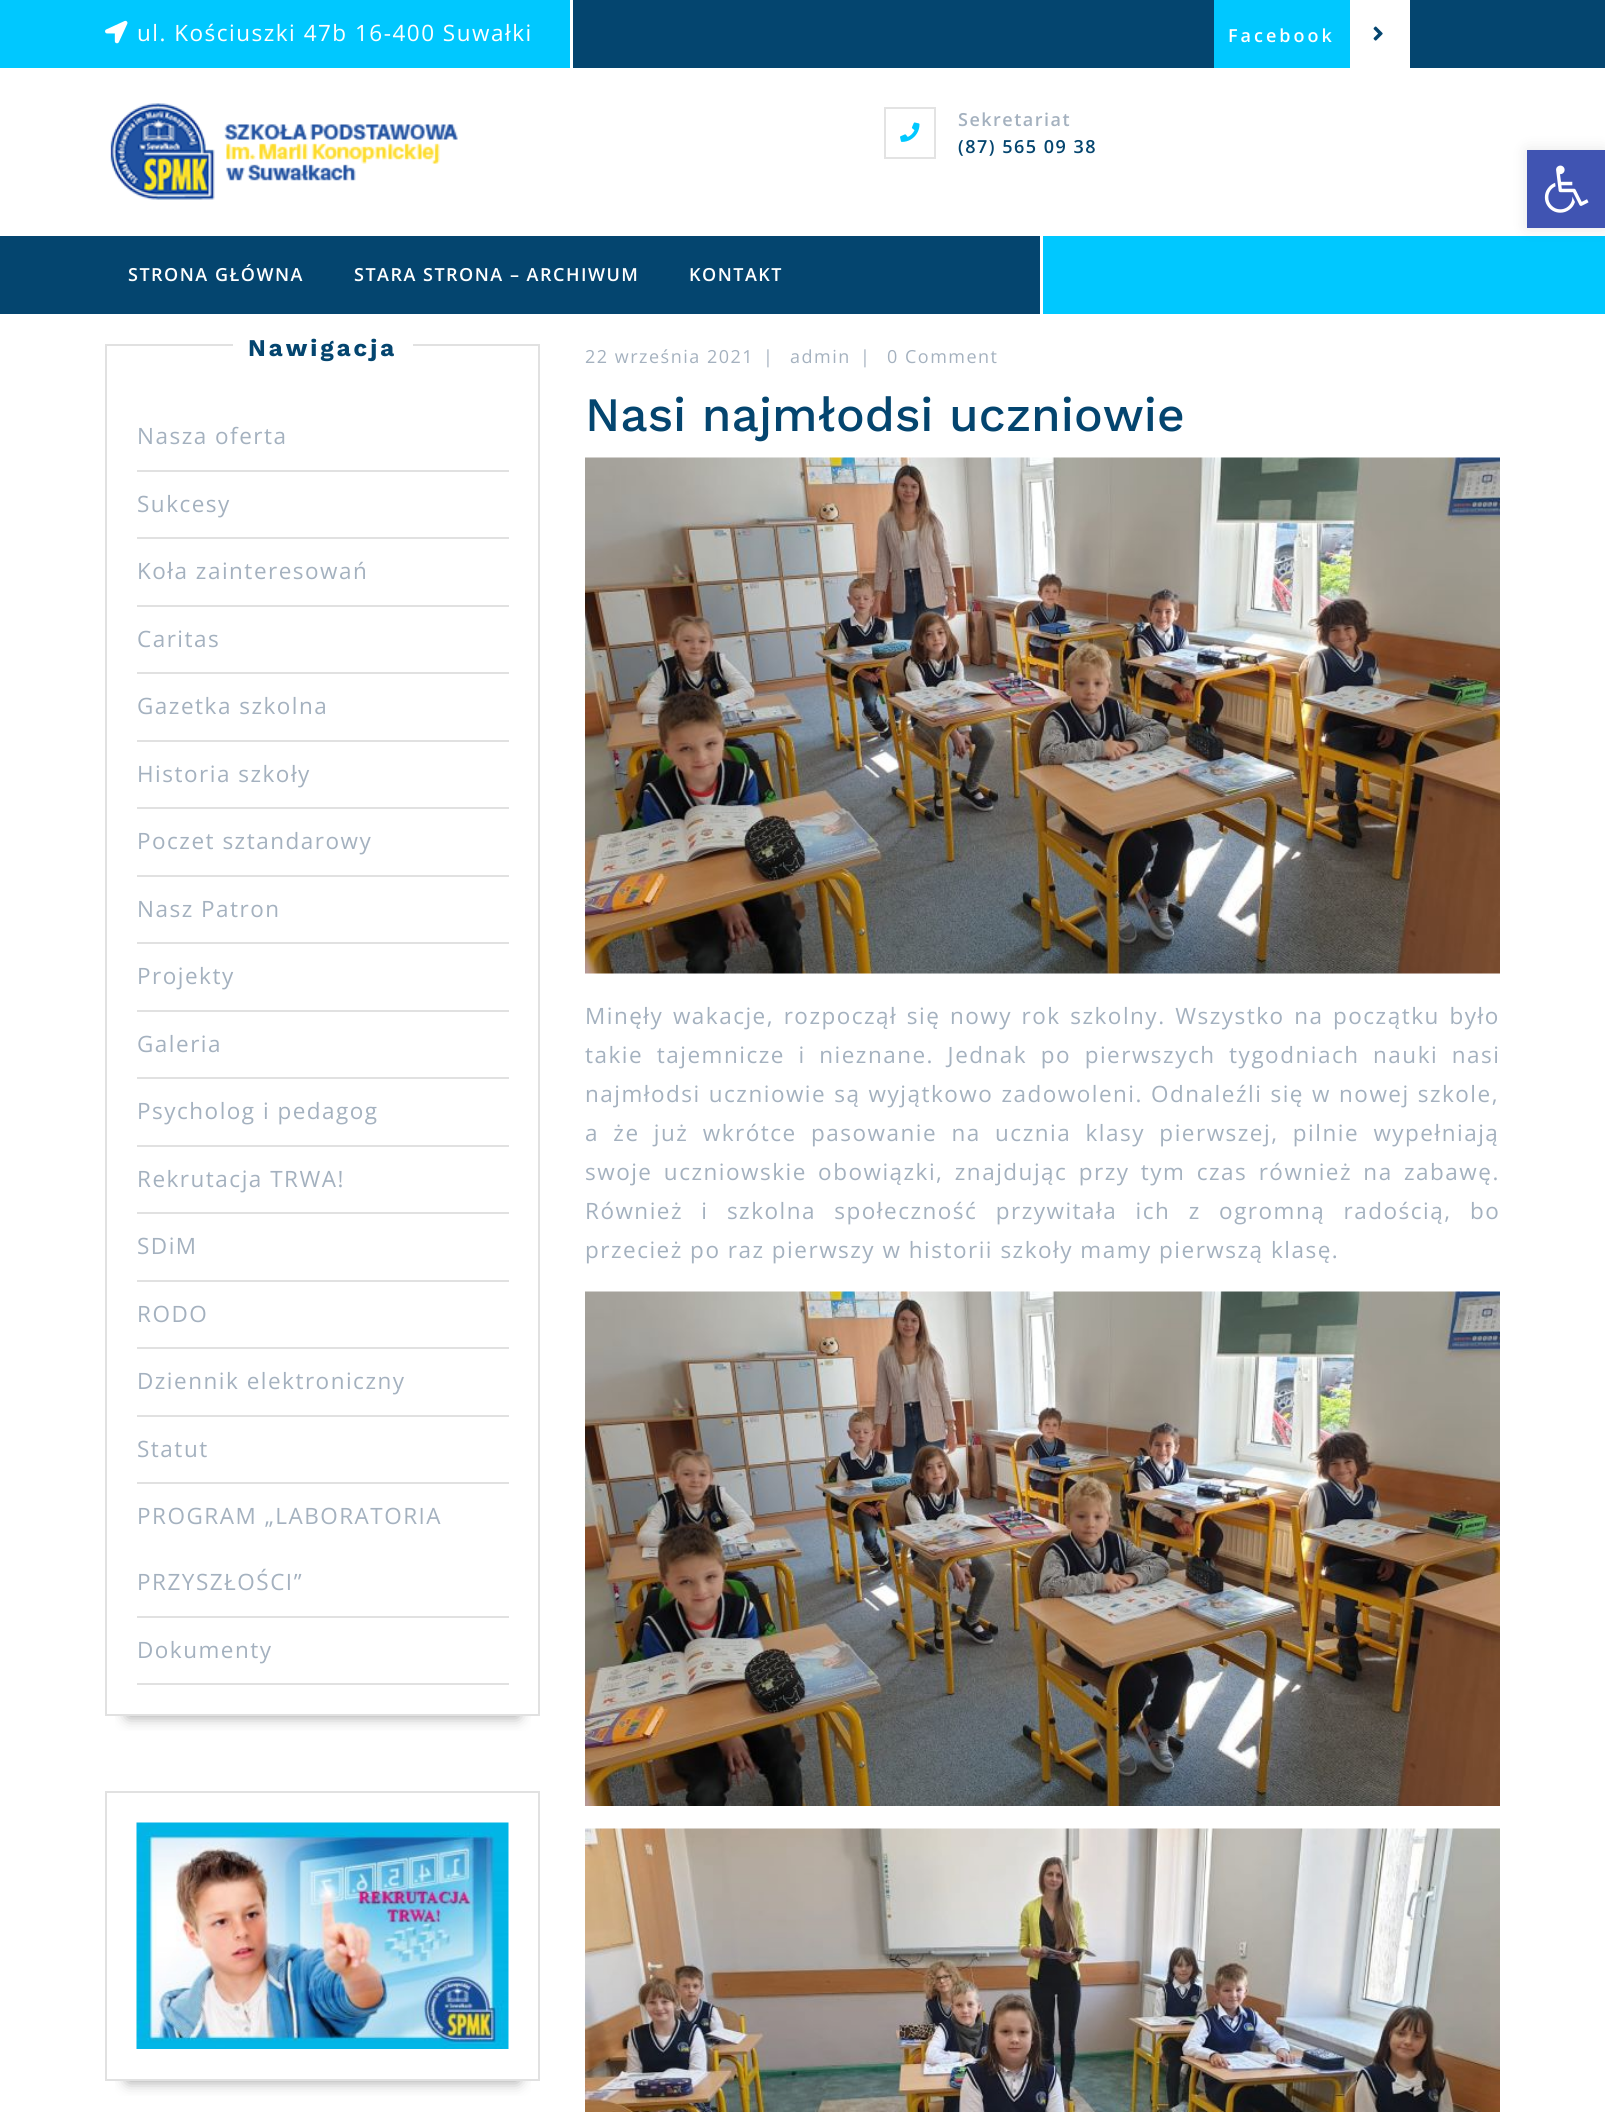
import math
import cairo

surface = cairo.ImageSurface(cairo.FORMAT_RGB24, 1605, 2112)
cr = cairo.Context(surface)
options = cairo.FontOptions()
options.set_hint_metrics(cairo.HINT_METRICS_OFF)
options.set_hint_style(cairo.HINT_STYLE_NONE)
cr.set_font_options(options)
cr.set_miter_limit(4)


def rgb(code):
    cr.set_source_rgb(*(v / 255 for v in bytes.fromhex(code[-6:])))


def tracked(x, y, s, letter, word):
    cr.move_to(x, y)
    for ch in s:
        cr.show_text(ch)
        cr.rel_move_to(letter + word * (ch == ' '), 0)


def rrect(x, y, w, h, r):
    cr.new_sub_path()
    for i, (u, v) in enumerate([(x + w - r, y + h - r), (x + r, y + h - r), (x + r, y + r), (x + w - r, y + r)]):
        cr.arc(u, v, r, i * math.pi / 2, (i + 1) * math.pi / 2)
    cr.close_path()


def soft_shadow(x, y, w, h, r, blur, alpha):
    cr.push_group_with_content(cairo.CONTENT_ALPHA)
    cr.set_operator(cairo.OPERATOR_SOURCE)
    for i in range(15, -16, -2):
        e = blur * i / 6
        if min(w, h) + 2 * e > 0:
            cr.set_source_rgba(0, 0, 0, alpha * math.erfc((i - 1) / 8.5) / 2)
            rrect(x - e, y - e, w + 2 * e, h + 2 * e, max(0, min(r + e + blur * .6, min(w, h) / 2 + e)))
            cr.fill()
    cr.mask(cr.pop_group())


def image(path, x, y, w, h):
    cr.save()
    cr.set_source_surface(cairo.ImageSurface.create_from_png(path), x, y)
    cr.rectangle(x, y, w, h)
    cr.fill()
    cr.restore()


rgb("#ffffff")
cr.paint()
rgb("#00c8ff")
cr.rectangle(0, 0, 570, 68)
cr.fill()
rgb("#04456f")
cr.rectangle(573, 0, 1032, 68)
cr.fill()
image("img/1.png", 105, 20, 23, 24)
rgb("#00c8ff")
cr.rectangle(1214, 0, 136, 68)
cr.fill()
rgb("#ffffff")
cr.rectangle(1350, 0, 60, 68)
cr.fill()
image("img/2.png", 1373, 26, 10, 15)
image("img/3.png", 110, 103, 348, 97)
cr.rectangle(885, 108, 50, 50)
rgb("#e3e3e3")
cr.stroke()
image("img/4.png", 900, 122, 20, 20)
rgb("#04456f")
cr.rectangle(0, 236, 1040, 78)
cr.fill()
rgb("#00c8ff")
cr.rectangle(1043, 236, 562, 78)
cr.fill()
rgb("#000000")
soft_shadow(1527, 150, 78, 78, 0, 7.5, 0.1)
rgb("#4054b2")
cr.rectangle(1527, 150, 78, 78)
cr.fill()
image("img/5.png", 1544, 165, 45, 48)
cr.save()
cr.rectangle(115, 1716, 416, 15)
cr.clip()
rgb("#999999")
soft_shadow(128, 389, 390, 1327, 0, 7.5, 1)
cr.restore()
cr.rectangle(106, 345, 433, 1370)
rgb("#e1e1e1")
cr.stroke()
for x, y, w, h, color in [
    (233, 344, 180, 2, "#ffffff"),
    (137, 470, 372, 2, "#e1e1e1"),
    (137, 537, 372, 2, "#e1e1e1"),
    (137, 605, 372, 2, "#e1e1e1"),
    (137, 672, 372, 2, "#e1e1e1"),
    (137, 740, 372, 2, "#e1e1e1"),
    (137, 807, 372, 2, "#e1e1e1"),
    (137, 875, 372, 2, "#e1e1e1"),
    (137, 942, 372, 2, "#e1e1e1"),
    (137, 1010, 372, 2, "#e1e1e1"),
    (137, 1077, 372, 2, "#e1e1e1"),
    (137, 1145, 372, 2, "#e1e1e1"),
    (137, 1212, 372, 2, "#e1e1e1"),
    (137, 1280, 372, 2, "#e1e1e1"),
    (137, 1347, 372, 2, "#e1e1e1"),
    (137, 1415, 372, 2, "#e1e1e1"),
    (137, 1482, 372, 2, "#e1e1e1"),
    (137, 1616, 372, 2, "#e1e1e1"),
    (137, 1683, 372, 2, "#e1e1e1"),
]:
    rgb(color)
    cr.rectangle(x, y, w, h)
    cr.fill()
cr.save()
cr.rectangle(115, 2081, 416, 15)
cr.clip()
rgb("#999999")
soft_shadow(128, 1836, 390, 245, 0, 7.5, 1)
cr.restore()
cr.rectangle(106, 1792, 433, 288)
cr.stroke()
image("img/6.png", 136, 1822, 373, 227)
image("img/7.png", 585, 457, 915, 517)
image("img/8.png", 585, 1291, 915, 515)
image("img/9.png", 585, 1828, 915, 284)
cr.select_font_face("Open Sans")
cr.set_font_size(22.5)
rgb("#ffffff")
tracked(137, 41, "ul. Kościuszki 47b 16-400 Suwałki", 1.5, 0)
cr.select_font_face("Open Sans SemiBold")
cr.set_font_size(18)
tracked(1228, 42, "Facebook", 3, 0)
rgb("#a4b1bf")
tracked(958, 126, "Sekretariat", 1.5, 0)
rgb("#04456f")
tracked(958, 153, "(87) 565 09 38", 1.5, 0)
rgb("#ffffff")
for x, y, s in [
    (128, 281, "STRONA GŁÓWNA"),
    (354, 281, "STARA STRONA – ARCHIWUM"),
    (689, 281, "KONTAKT"),
]:
    tracked(x, y, s, 1.5, 0)
cr.select_font_face("Work Sans", cairo.FONT_SLANT_NORMAL, cairo.FONT_WEIGHT_BOLD)
cr.set_font_size(24)
rgb("#04456f")
tracked(248, 356, "Nawigacja", 3, 0)
cr.select_font_face("Open Sans")
cr.set_font_size(22.5)
rgb("#a4b1bf")
for x, y, s in [
    (137, 444, "Nasza oferta"),
    (137, 512, "Sukcesy"),
    (137, 579, "Koła zainteresowań"),
    (137, 647, "Caritas"),
    (137, 714, "Gazetka szkolna"),
    (137, 782, "Historia szkoły"),
    (137, 849, "Poczet sztandarowy"),
    (137, 917, "Nasz Patron"),
    (137, 984, "Projekty"),
    (137, 1052, "Galeria"),
    (137, 1119, "Psycholog i pedagog"),
    (137, 1187, "Rekrutacja TRWA!"),
    (137, 1254, "SDiM"),
    (137, 1322, "RODO"),
    (137, 1389, "Dziennik elektroniczny"),
    (137, 1457, "Statut"),
    (137, 1524, "PROGRAM „LABORATORIA"),
    (137, 1590, "PRZYSZŁOŚCI”"),
    (137, 1658, "Dokumenty"),
]:
    tracked(x, y, s, 1.5, 0)
cr.set_font_size(18)
for x, y, s in [
    (585, 363, "22 września 2021"),
    (763, 363, "|"),
    (790, 363, "admin"),
    (860, 363, "|"),
    (887, 363, "0 Comment"),
]:
    tracked(x, y, s, 1.5, 0)
cr.select_font_face("Work Sans Medium")
cr.set_font_size(48)
rgb("#04456f")
cr.move_to(585, 431)
cr.show_text("Nasi najmłodsi uczniowie")
cr.select_font_face("Open Sans")
cr.set_font_size(22.5)
rgb("#a4b1bf")
tracked(585, 1024, "Minęły wakacje, rozpoczął się nowy rok szkolny. Wszystko na początku było", 1.5, 2.25)
tracked(585, 1063, "takie tajemnicze i nieznane. Jednak po pierwszych tygodniach nauki nasi", 1.5, 6.25)
tracked(585, 1102, "najmłodsi uczniowie są wyjątkowo zadowoleni. Odnaleźli się w nowej szkole,", 1.5, 0.75)
tracked(585, 1141, "a że już wkrótce pasowanie na ucznia klasy pierwszej, pilnie wypełniają", 1.5, 7)
tracked(585, 1180, "swoje uczniowskie obowiązki, znajdując przy tym czas również na zabawę.", 1.5, 4)
tracked(585, 1219, "Również i szkolna społeczność przywitała ich z ogromną radością, bo", 1.5, 11)
tracked(585, 1258, "przecież po raz pierwszy w historii szkoły mamy pierwszą klasę.", 1.5, 0)
surface.write_to_png("page.png")
